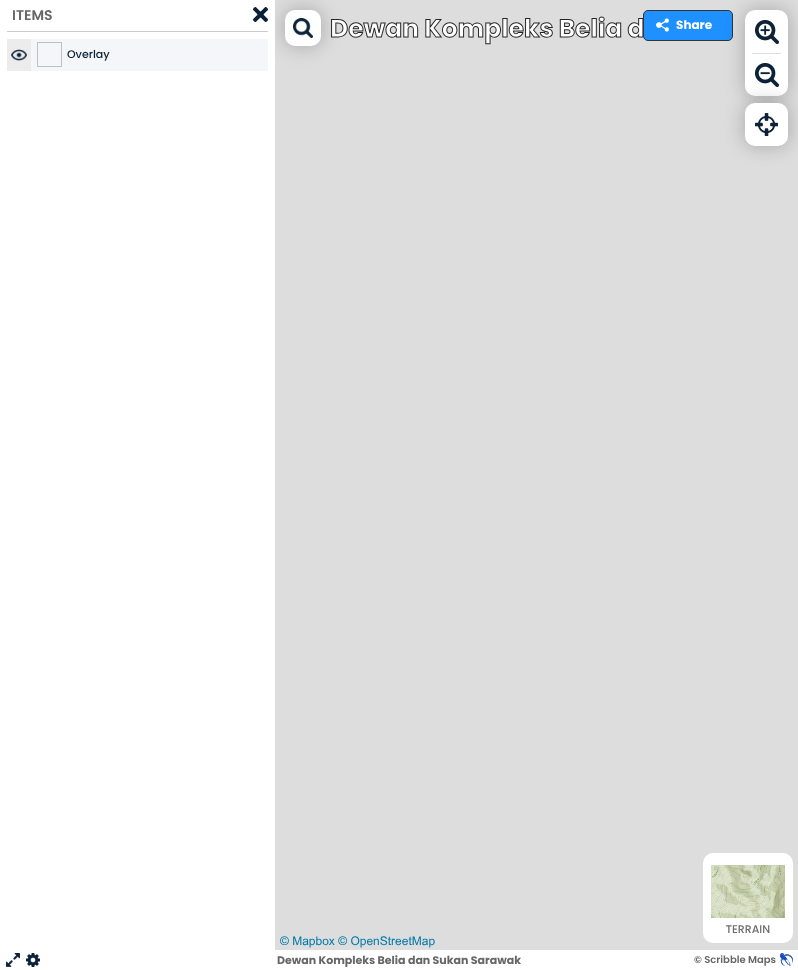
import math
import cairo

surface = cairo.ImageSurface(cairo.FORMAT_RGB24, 798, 970)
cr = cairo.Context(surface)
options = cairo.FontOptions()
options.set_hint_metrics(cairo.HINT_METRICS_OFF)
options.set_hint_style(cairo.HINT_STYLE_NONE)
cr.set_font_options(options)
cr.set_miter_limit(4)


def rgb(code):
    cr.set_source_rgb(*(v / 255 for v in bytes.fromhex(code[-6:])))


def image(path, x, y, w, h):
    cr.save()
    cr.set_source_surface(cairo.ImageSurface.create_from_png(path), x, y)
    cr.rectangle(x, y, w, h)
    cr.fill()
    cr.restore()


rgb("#ffffff")
cr.paint()
image("img/1.png", 6, 0, 792, 967)
surface.write_to_png("page.png")
